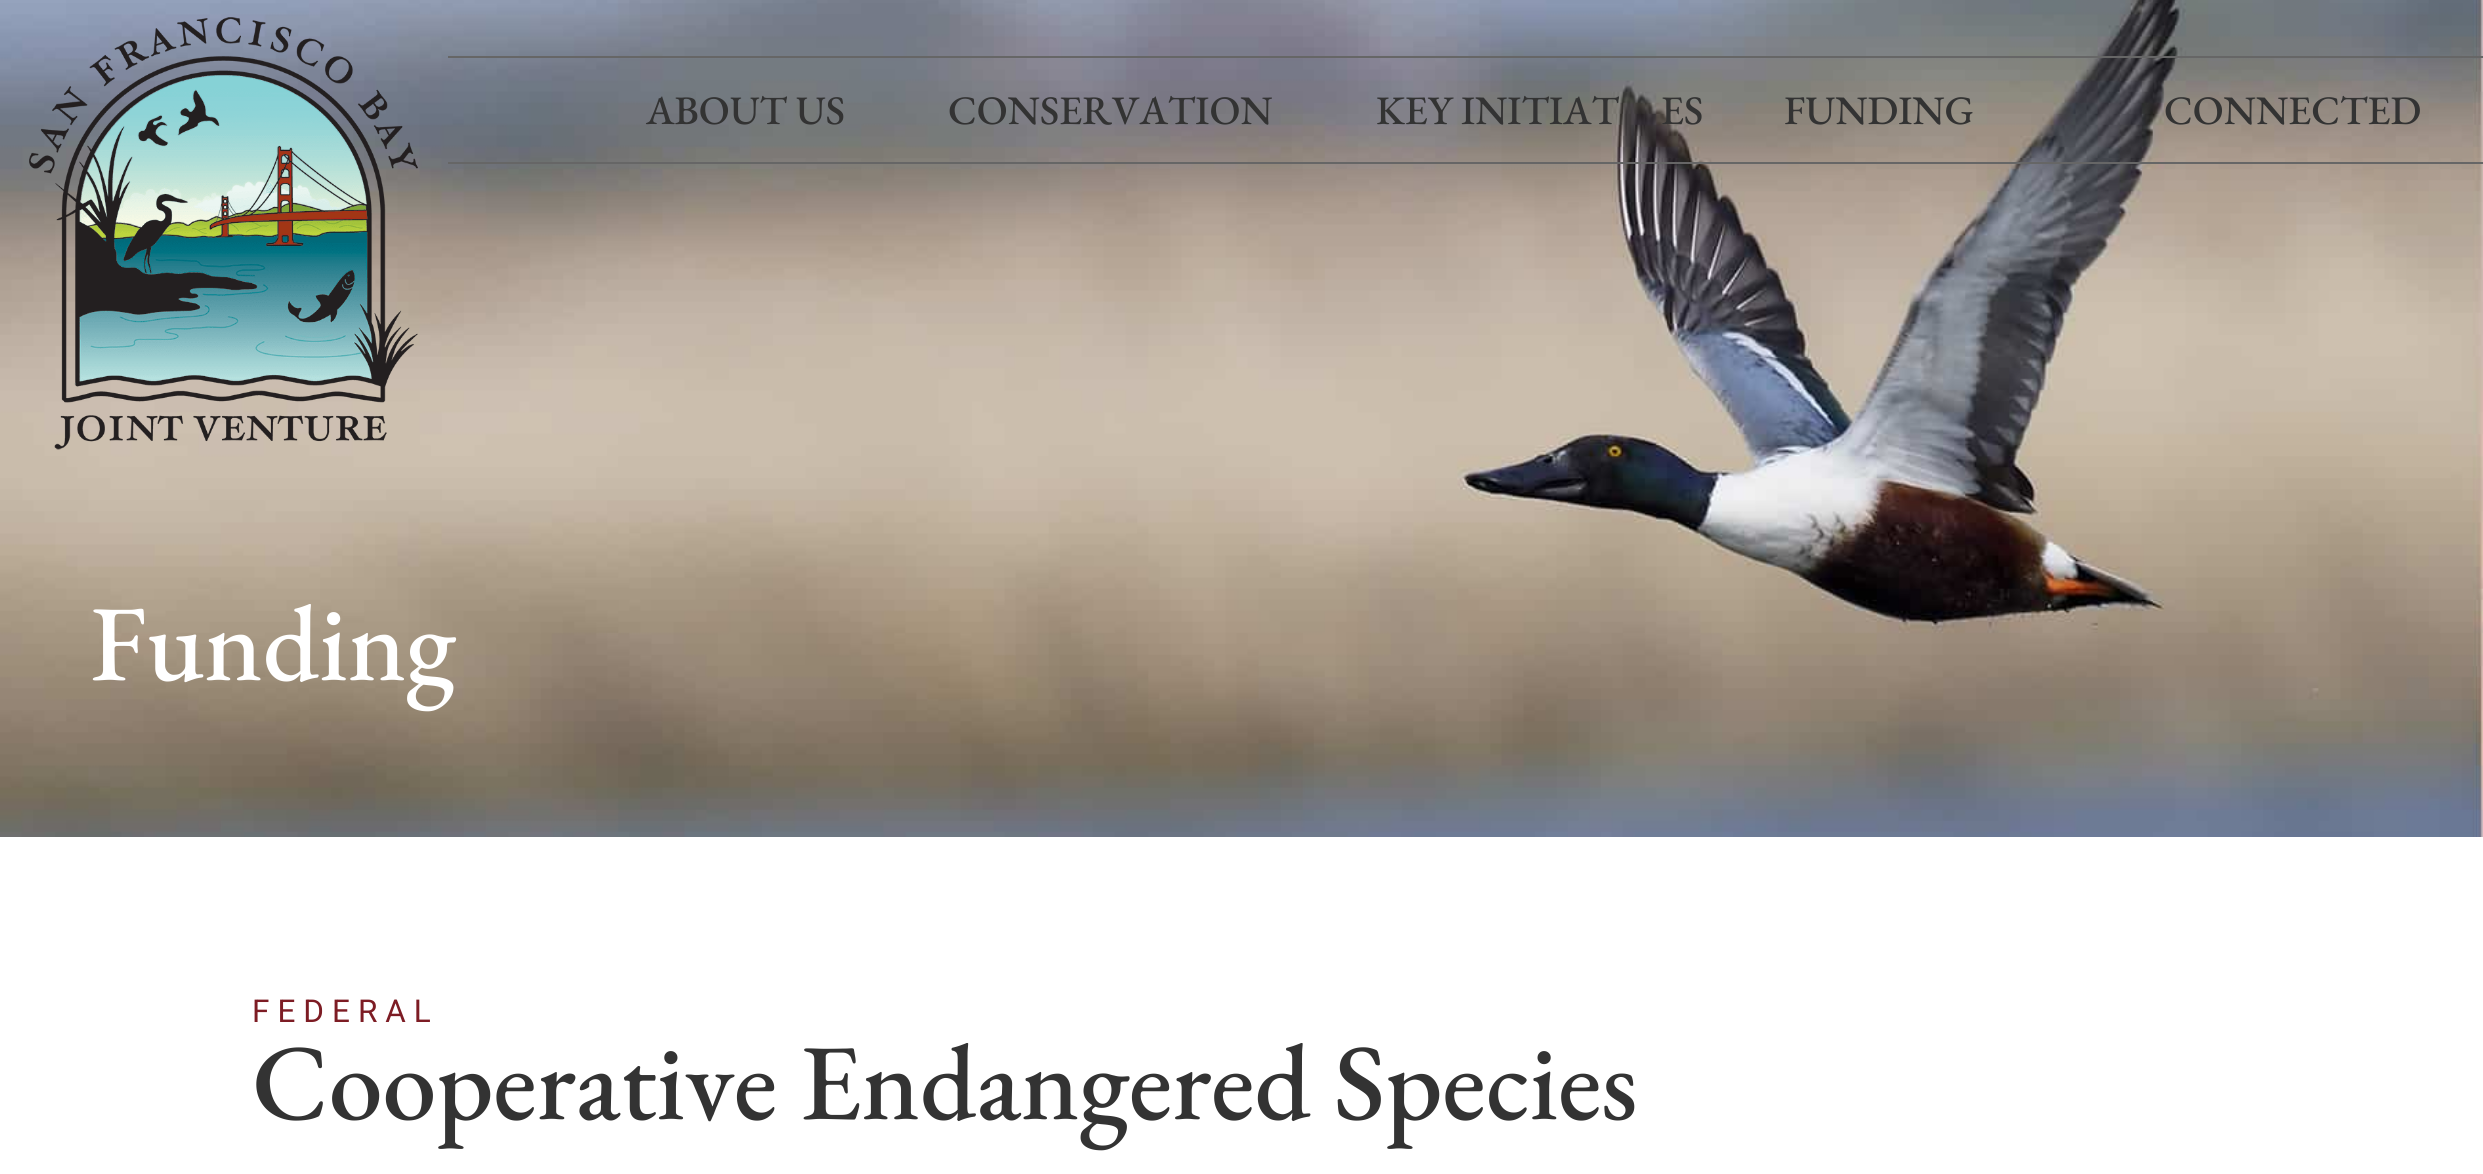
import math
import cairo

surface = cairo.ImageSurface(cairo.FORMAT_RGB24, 2483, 1174)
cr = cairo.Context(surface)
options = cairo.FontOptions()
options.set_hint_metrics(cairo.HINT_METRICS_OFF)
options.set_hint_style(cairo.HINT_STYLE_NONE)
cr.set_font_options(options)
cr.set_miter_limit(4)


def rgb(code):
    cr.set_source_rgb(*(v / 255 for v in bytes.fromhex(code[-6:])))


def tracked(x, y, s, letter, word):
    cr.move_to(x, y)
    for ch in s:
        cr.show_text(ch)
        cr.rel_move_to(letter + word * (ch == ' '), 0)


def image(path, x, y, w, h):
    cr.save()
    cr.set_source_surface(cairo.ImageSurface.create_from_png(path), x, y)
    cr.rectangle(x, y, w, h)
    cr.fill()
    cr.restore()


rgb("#ffffff")
cr.paint()
image("img/2.png", 0, 0, 2483, 837)
image("img/1.png", 29, 17, 389, 433)
rgb("#666666")
cr.rectangle(448, 56, 2035, 2)
cr.fill()
cr.rectangle(448, 162, 2035, 2)
cr.fill()
cr.select_font_face("EB Garamond Medium")
cr.set_font_size(40.5)
rgb("#333333")
for x, y, s in [
    (646, 124, "ABOUT US"),
    (948, 124, "CONSERVATION"),
    (1376, 124, "KEY INITIAT"),
    (1661, 124, "ES"),
    (1784, 124, "FUNDING"),
    (2164, 124, "CONNECTED"),
]:
    cr.move_to(x, y)
    cr.show_text(s)
cr.set_font_size(108)
rgb("#ffffff")
cr.move_to(90, 680)
cr.show_text("Funding")
cr.select_font_face("Roboto")
cr.set_font_size(31.5)
rgb("#7d1c24")
tracked(252, 1022, "FEDERAL", 8, 0)
cr.select_font_face("EB Garamond Medium")
cr.set_font_size(108)
rgb("#333333")
cr.move_to(252, 1119)
cr.show_text("Cooperative Endangered Species")
surface.write_to_png("page.png")
